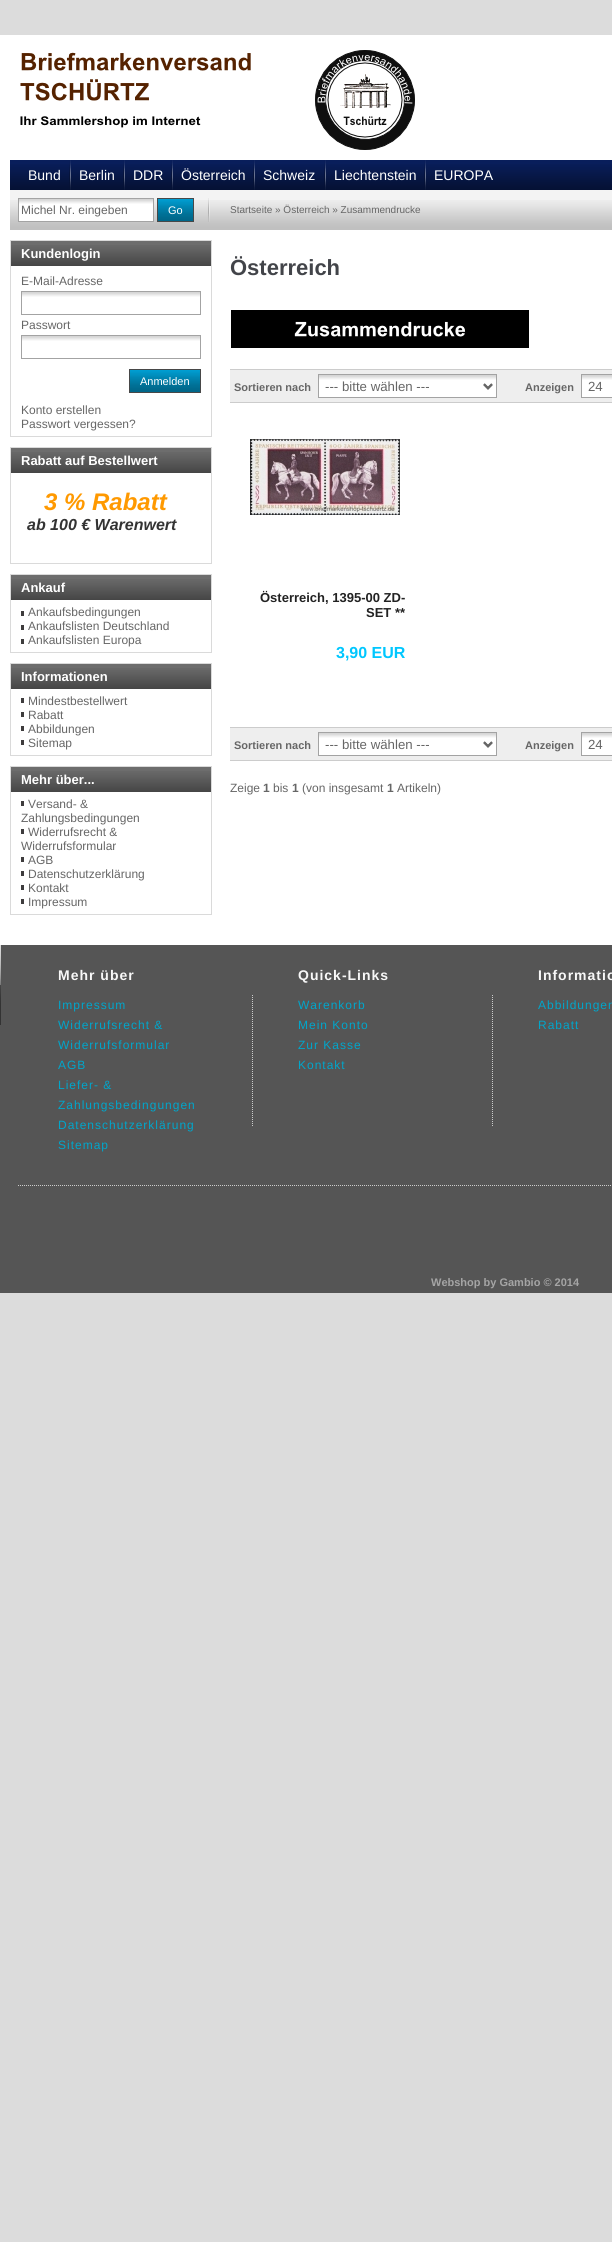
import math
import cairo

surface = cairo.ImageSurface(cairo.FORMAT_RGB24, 612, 2242)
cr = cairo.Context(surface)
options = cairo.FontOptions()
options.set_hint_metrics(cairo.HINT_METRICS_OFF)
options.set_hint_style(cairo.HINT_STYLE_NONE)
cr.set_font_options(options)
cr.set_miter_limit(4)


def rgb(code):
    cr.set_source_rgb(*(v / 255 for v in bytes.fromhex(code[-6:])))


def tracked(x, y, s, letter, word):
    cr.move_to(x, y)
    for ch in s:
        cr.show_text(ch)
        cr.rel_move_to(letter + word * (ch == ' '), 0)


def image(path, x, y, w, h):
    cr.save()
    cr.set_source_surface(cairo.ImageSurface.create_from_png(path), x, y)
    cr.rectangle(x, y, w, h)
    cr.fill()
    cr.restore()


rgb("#dcdcdc")
cr.paint()
rgb("#ffffff")
cr.rectangle(0, 35, 612, 910)
cr.fill()
image("img/1.png", 20, 50, 395, 100)
rgb("#091e5b")
cr.rectangle(10, 160, 602, 30)
cr.fill()
image("img/2.png", 10, 164, 602, 26)
image("img/3.png", 69, 160, 2, 30)
image("img/3.png", 123, 160, 2, 30)
image("img/3.png", 171, 160, 2, 30)
image("img/3.png", 253, 160, 2, 30)
image("img/3.png", 324, 160, 2, 30)
image("img/3.png", 424, 160, 2, 30)
rgb("#f3f3f3")
cr.rectangle(10, 190, 602, 40)
cr.fill()
image("img/4.png", 10, 200, 602, 30)
image("img/5.png", 208, 198, 2, 24)
rgb("#ffffff")
cr.rectangle(19, 199, 134, 22)
cr.fill()
image("img/6.png", 19, 199, 134, 5)
cr.rectangle(18.5, 198.5, 135, 23)
rgb("#a3a3a3")
cr.set_line_width(1)
cr.stroke()
rgb("#00bfff")
cr.rectangle(158, 199, 35, 22)
cr.fill()
image("img/7.png", 158, 199, 35, 22)
cr.rectangle(157.5, 198.5, 36, 23)
rgb("#484848")
cr.stroke()
cr.rectangle(10.5, 240.5, 201, 196)
rgb("#dadada")
cr.stroke()
rgb("#6d6d6d")
cr.rectangle(11, 241, 200, 25)
cr.fill()
image("img/8.png", 11, 245, 200, 21)
image("img/9.png", 22, 292, 178, 5)
cr.rectangle(21.5, 291.5, 179, 23)
rgb("#a3a3a3")
cr.stroke()
image("img/9.png", 22, 336, 178, 5)
cr.rectangle(21.5, 335.5, 179, 23)
cr.stroke()
rgb("#00bfff")
cr.rectangle(130, 370, 70, 22)
cr.fill()
image("img/10.png", 130, 370, 70, 22)
cr.rectangle(129.5, 369.5, 71, 23)
rgb("#484848")
cr.stroke()
cr.rectangle(10.5, 447.5, 201, 116)
rgb("#dadada")
cr.stroke()
rgb("#6d6d6d")
cr.rectangle(11, 448, 200, 25)
cr.fill()
image("img/8.png", 11, 452, 200, 21)
cr.rectangle(10.5, 574.5, 201, 78)
rgb("#dadada")
cr.stroke()
rgb("#6d6d6d")
cr.rectangle(11, 575, 200, 25)
cr.fill()
image("img/8.png", 11, 579, 200, 21)
for x, y, w, h, color in [
    (21, 611, 3, 5, "#3e3c3d"),
    (21, 625, 3, 5, "#3e3c3d"),
    (21, 639, 3, 5, "#3e3c3d"),
]:
    rgb(color)
    cr.rectangle(x, y, w, h)
    cr.fill()
cr.rectangle(10.5, 663.5, 201, 92)
rgb("#dadada")
cr.stroke()
rgb("#6d6d6d")
cr.rectangle(11, 664, 200, 25)
cr.fill()
image("img/8.png", 11, 668, 200, 21)
for x, y, w, h, color in [
    (21, 698, 3, 5, "#3e3c3d"),
    (21, 712, 3, 5, "#3e3c3d"),
    (21, 726, 3, 5, "#3e3c3d"),
    (21, 740, 3, 5, "#3e3c3d"),
]:
    rgb(color)
    cr.rectangle(x, y, w, h)
    cr.fill()
cr.rectangle(10.5, 766.5, 201, 148)
rgb("#dadada")
cr.stroke()
rgb("#6d6d6d")
cr.rectangle(11, 767, 200, 25)
cr.fill()
image("img/8.png", 11, 771, 200, 21)
for x, y, w, h, color in [
    (21, 801, 3, 5, "#3e3c3d"),
    (21, 829, 3, 5, "#3e3c3d"),
    (21, 857, 3, 5, "#3e3c3d"),
    (21, 871, 3, 5, "#3e3c3d"),
    (21, 885, 3, 5, "#3e3c3d"),
    (21, 899, 3, 5, "#3e3c3d"),
]:
    rgb(color)
    cr.rectangle(x, y, w, h)
    cr.fill()
image("img/11.png", 231, 310, 298, 38)
for x, y, w, h, color in [
    (230, 370, 382, 32, "#eeeeee"),
    (230, 369, 382, 1, "#cccccc"),
    (230, 402, 382, 1, "#cccccc"),
    (319, 375, 177, 22, "#ffffff"),
]:
    rgb(color)
    cr.rectangle(x, y, w, h)
    cr.fill()
image("img/12.png", 319, 375, 177, 15)
cr.rectangle(318.5, 374.5, 178, 23)
rgb("#a3a3a3")
cr.stroke()
cr.new_path()
cr.move_to(484, 384.5)
cr.line_to(488, 388.5)
cr.line_to(492, 384.5)
rgb("#666666")
cr.set_line_width(2)
cr.stroke()
rgb("#ffffff")
cr.rectangle(582, 375, 30, 22)
cr.fill()
image("img/13.png", 582, 375, 30, 5)
cr.rectangle(581.5, 374.5, 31, 23)
rgb("#a3a3a3")
cr.set_line_width(1)
cr.stroke()
image("img/14.png", 250, 439, 150, 76)
for x, y, w, h, color in [
    (230, 728, 382, 32, "#eeeeee"),
    (230, 727, 382, 1, "#cccccc"),
    (230, 760, 382, 1, "#cccccc"),
    (319, 733, 177, 22, "#ffffff"),
]:
    rgb(color)
    cr.rectangle(x, y, w, h)
    cr.fill()
image("img/12.png", 319, 733, 177, 15)
cr.rectangle(318.5, 732.5, 178, 23)
rgb("#a3a3a3")
cr.stroke()
cr.new_path()
cr.move_to(484, 742.5)
cr.line_to(488, 746.5)
cr.line_to(492, 742.5)
rgb("#666666")
cr.set_line_width(2)
cr.stroke()
rgb("#ffffff")
cr.rectangle(582, 733, 30, 22)
cr.fill()
image("img/13.png", 582, 733, 30, 5)
cr.rectangle(581.5, 732.5, 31, 23)
rgb("#a3a3a3")
cr.set_line_width(1)
cr.stroke()
rgb("#555555")
cr.rectangle(0, 945, 612, 348)
cr.fill()
image("img/15.png", 0, 945, 1, 80)
cr.new_path()
cr.move_to(18, 1185.5)
cr.line_to(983, 1185.5)
rgb("#cccccc")
cr.set_dash([1, 1])
cr.stroke()
cr.new_path()
cr.move_to(252.5, 995)
cr.line_to(252.5, 1127)
cr.stroke()
cr.new_path()
cr.move_to(492.5, 995)
cr.line_to(492.5, 1127)
cr.stroke()
cr.select_font_face("Liberation Sans")
cr.set_font_size(14)
rgb("#ffffff")
for x, y, s in [
    (28, 180, "Bund"),
    (79, 180, "Berlin"),
    (133, 180, "DDR"),
    (181, 180, "Österreich"),
    (263, 180, "Schweiz"),
    (334, 180, "Liechtenstein"),
    (434, 180, "EUROPA"),
]:
    cr.move_to(x, y)
    cr.show_text(s)
cr.set_font_size(12)
rgb("#666666")
cr.move_to(21, 214)
cr.show_text("Michel Nr. eingeben")
cr.set_font_size(11)
rgb("#ffffff")
cr.move_to(168, 214)
cr.show_text("Go")
cr.set_font_size(10)
rgb("#666666")
cr.move_to(230, 213)
cr.show_text("Startseite » Österreich » Zusammendrucke")
cr.select_font_face("Liberation Sans", cairo.FONT_SLANT_NORMAL, cairo.FONT_WEIGHT_BOLD)
cr.set_font_size(13)
rgb("#ffffff")
cr.move_to(21, 258)
cr.show_text("Kundenlogin")
cr.select_font_face("Liberation Sans")
cr.set_font_size(12)
rgb("#666666")
cr.move_to(21, 285)
cr.show_text("E-Mail-Adresse")
cr.move_to(21, 329)
cr.show_text("Passwort")
cr.set_font_size(11)
rgb("#ffffff")
cr.move_to(140, 385)
cr.show_text("Anmelden")
cr.set_font_size(12)
rgb("#666666")
cr.move_to(21, 414)
cr.show_text("Konto erstellen")
cr.move_to(21, 428)
cr.show_text("Passwort vergessen?")
cr.select_font_face("Liberation Sans", cairo.FONT_SLANT_NORMAL, cairo.FONT_WEIGHT_BOLD)
cr.set_font_size(13)
rgb("#ffffff")
cr.move_to(21, 465)
cr.show_text("Rabatt auf Bestellwert")
cr.select_font_face("Liberation Sans", cairo.FONT_SLANT_ITALIC, cairo.FONT_WEIGHT_BOLD)
cr.set_font_size(24)
rgb("#ff9900")
cr.move_to(44, 510)
cr.show_text("3 % Rabatt")
cr.set_font_size(16)
rgb("#333333")
cr.move_to(27, 530)
cr.show_text("ab 100 € Warenwert")
cr.select_font_face("Liberation Sans", cairo.FONT_SLANT_NORMAL, cairo.FONT_WEIGHT_BOLD)
cr.set_font_size(13)
rgb("#ffffff")
cr.move_to(21, 592)
cr.show_text("Ankauf")
cr.select_font_face("Liberation Sans")
cr.set_font_size(12)
rgb("#666666")
for x, y, s in [
    (28, 616, "Ankaufsbedingungen"),
    (28, 630, "Ankaufslisten Deutschland"),
    (28, 644, "Ankaufslisten Europa"),
]:
    cr.move_to(x, y)
    cr.show_text(s)
cr.select_font_face("Liberation Sans", cairo.FONT_SLANT_NORMAL, cairo.FONT_WEIGHT_BOLD)
cr.set_font_size(13)
rgb("#ffffff")
cr.move_to(21, 681)
cr.show_text("Informationen")
cr.select_font_face("Liberation Sans")
cr.set_font_size(12)
rgb("#666666")
for x, y, s in [
    (28, 705, "Mindestbestellwert"),
    (28, 719, "Rabatt"),
    (28, 733, "Abbildungen"),
    (28, 747, "Sitemap"),
]:
    cr.move_to(x, y)
    cr.show_text(s)
cr.select_font_face("Liberation Sans", cairo.FONT_SLANT_NORMAL, cairo.FONT_WEIGHT_BOLD)
cr.set_font_size(13)
rgb("#ffffff")
cr.move_to(21, 784)
cr.show_text("Mehr über...")
cr.select_font_face("Liberation Sans")
cr.set_font_size(12)
rgb("#666666")
for x, y, s in [
    (28, 808, "Versand- &"),
    (21, 822, "Zahlungsbedingungen"),
    (28, 836, "Widerrufsrecht &"),
    (21, 850, "Widerrufsformular"),
    (28, 864, "AGB"),
    (28, 878, "Datenschutzerklärung"),
    (28, 892, "Kontakt"),
    (28, 906, "Impressum"),
]:
    cr.move_to(x, y)
    cr.show_text(s)
cr.select_font_face("Liberation Sans", cairo.FONT_SLANT_NORMAL, cairo.FONT_WEIGHT_BOLD)
cr.set_font_size(22)
rgb("#424449")
cr.move_to(230, 275)
cr.show_text("Österreich")
cr.set_font_size(11)
rgb("#666666")
cr.move_to(234, 391)
cr.show_text("Sortieren nach")
cr.select_font_face("Liberation Sans")
cr.set_font_size(13.25)
cr.move_to(325, 391)
cr.show_text("--- bitte wählen ---")
cr.select_font_face("Liberation Sans", cairo.FONT_SLANT_NORMAL, cairo.FONT_WEIGHT_BOLD)
cr.set_font_size(11)
cr.move_to(525, 391)
cr.show_text("Anzeigen")
cr.select_font_face("Liberation Sans")
cr.set_font_size(13.25)
cr.move_to(588, 391)
cr.show_text("24")
cr.select_font_face("Liberation Sans", cairo.FONT_SLANT_NORMAL, cairo.FONT_WEIGHT_BOLD)
cr.set_font_size(13)
rgb("#222222")
cr.move_to(260, 602)
cr.show_text("Österreich, 1395-00 ZD-")
cr.move_to(366, 617)
cr.show_text("SET **")
cr.set_font_size(16)
rgb("#00c7ff")
cr.move_to(336, 658)
cr.show_text("3,90 EUR")
cr.set_font_size(11)
rgb("#666666")
cr.move_to(234, 749)
cr.show_text("Sortieren nach")
cr.select_font_face("Liberation Sans")
cr.set_font_size(13.25)
cr.move_to(325, 749)
cr.show_text("--- bitte wählen ---")
cr.select_font_face("Liberation Sans", cairo.FONT_SLANT_NORMAL, cairo.FONT_WEIGHT_BOLD)
cr.set_font_size(11)
cr.move_to(525, 749)
cr.show_text("Anzeigen")
cr.select_font_face("Liberation Sans")
cr.set_font_size(13.25)
cr.move_to(588, 749)
cr.show_text("24")
cr.set_font_size(12)
cr.move_to(230, 792)
cr.show_text("Zeige")
cr.select_font_face("Liberation Sans", cairo.FONT_SLANT_NORMAL, cairo.FONT_WEIGHT_BOLD)
cr.move_to(263, 792)
cr.show_text("1")
cr.select_font_face("Liberation Sans")
cr.move_to(273, 792)
cr.show_text("bis")
cr.select_font_face("Liberation Sans", cairo.FONT_SLANT_NORMAL, cairo.FONT_WEIGHT_BOLD)
cr.move_to(292, 792)
cr.show_text("1")
cr.select_font_face("Liberation Sans")
cr.move_to(302, 792)
cr.show_text("(von insgesamt")
cr.select_font_face("Liberation Sans", cairo.FONT_SLANT_NORMAL, cairo.FONT_WEIGHT_BOLD)
cr.move_to(387, 792)
cr.show_text("1")
cr.select_font_face("Liberation Sans")
cr.move_to(397, 792)
cr.show_text("Artikeln)")
cr.select_font_face("Liberation Sans", cairo.FONT_SLANT_NORMAL, cairo.FONT_WEIGHT_BOLD)
cr.set_font_size(14)
rgb("#f8f8f8")
tracked(58, 980, "Mehr über", 1, 0)
cr.select_font_face("Liberation Sans")
cr.set_font_size(12)
rgb("#00a6cb")
for x, y, s in [
    (58, 1009, "Impressum"),
    (58, 1029, "Widerrufsrecht &"),
    (58, 1049, "Widerrufsformular"),
    (58, 1069, "AGB"),
    (58, 1089, "Liefer- &"),
    (58, 1109, "Zahlungsbedingungen"),
    (58, 1129, "Datenschutzerklärung"),
    (58, 1149, "Sitemap"),
]:
    tracked(x, y, s, 1, 0)
cr.select_font_face("Liberation Sans", cairo.FONT_SLANT_NORMAL, cairo.FONT_WEIGHT_BOLD)
cr.set_font_size(14)
rgb("#f8f8f8")
tracked(298, 980, "Quick-Links", 1, 0)
cr.select_font_face("Liberation Sans")
cr.set_font_size(12)
rgb("#00a6cb")
for x, y, s in [
    (298, 1009, "Warenkorb"),
    (298, 1029, "Mein Konto"),
    (298, 1049, "Zur Kasse"),
    (298, 1069, "Kontakt"),
]:
    tracked(x, y, s, 1, 0)
cr.select_font_face("Liberation Sans", cairo.FONT_SLANT_NORMAL, cairo.FONT_WEIGHT_BOLD)
cr.set_font_size(14)
rgb("#f8f8f8")
tracked(538, 980, "Informatio", 1, 0)
cr.select_font_face("Liberation Sans")
cr.set_font_size(12)
rgb("#00a6cb")
tracked(538, 1009, "Abbildungen", 1, 0)
tracked(538, 1029, "Rabatt", 1, 0)
cr.select_font_face("Liberation Sans", cairo.FONT_SLANT_NORMAL, cairo.FONT_WEIGHT_BOLD)
cr.set_font_size(11)
rgb("#a5a5a5")
cr.move_to(431, 1286)
cr.show_text("Webshop by Gambio © 2014")
surface.write_to_png("page.png")
